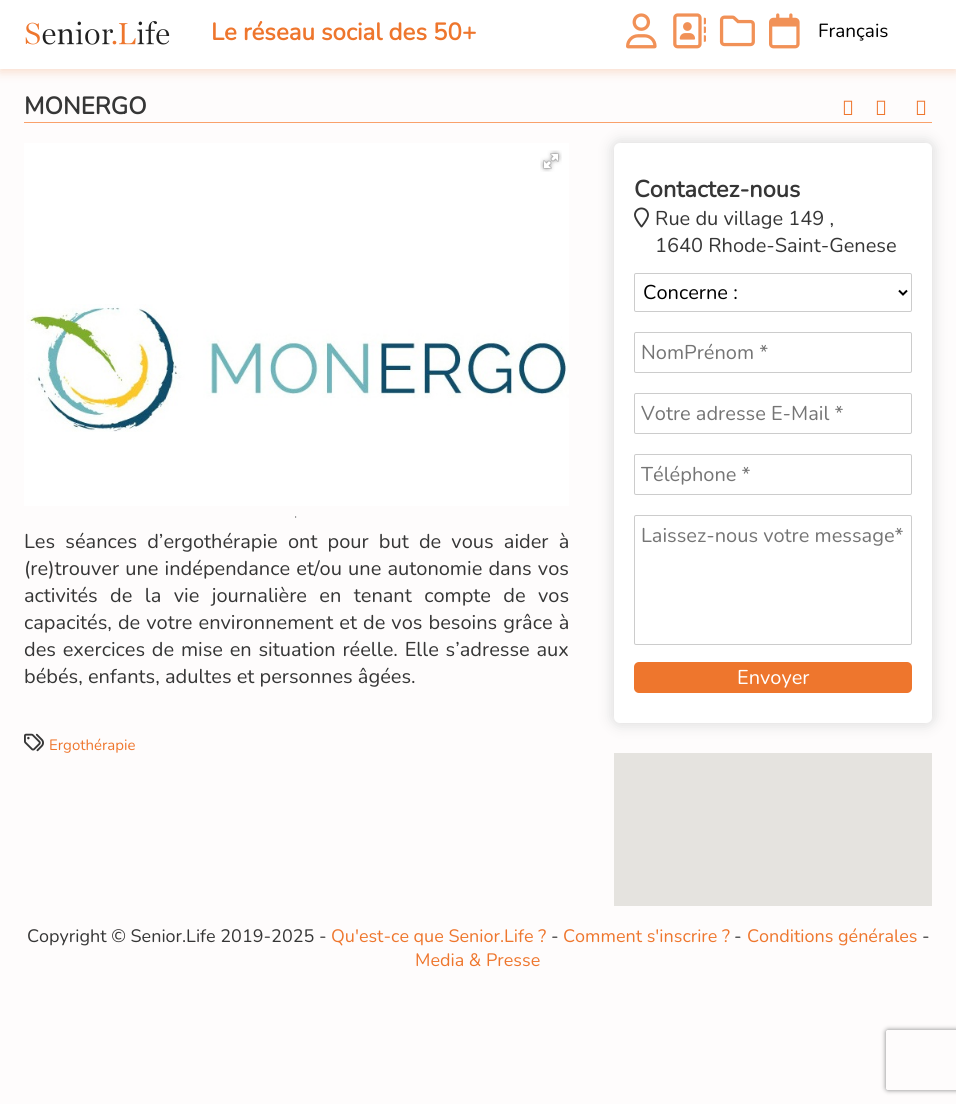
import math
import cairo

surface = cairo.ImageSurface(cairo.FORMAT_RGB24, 956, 1104)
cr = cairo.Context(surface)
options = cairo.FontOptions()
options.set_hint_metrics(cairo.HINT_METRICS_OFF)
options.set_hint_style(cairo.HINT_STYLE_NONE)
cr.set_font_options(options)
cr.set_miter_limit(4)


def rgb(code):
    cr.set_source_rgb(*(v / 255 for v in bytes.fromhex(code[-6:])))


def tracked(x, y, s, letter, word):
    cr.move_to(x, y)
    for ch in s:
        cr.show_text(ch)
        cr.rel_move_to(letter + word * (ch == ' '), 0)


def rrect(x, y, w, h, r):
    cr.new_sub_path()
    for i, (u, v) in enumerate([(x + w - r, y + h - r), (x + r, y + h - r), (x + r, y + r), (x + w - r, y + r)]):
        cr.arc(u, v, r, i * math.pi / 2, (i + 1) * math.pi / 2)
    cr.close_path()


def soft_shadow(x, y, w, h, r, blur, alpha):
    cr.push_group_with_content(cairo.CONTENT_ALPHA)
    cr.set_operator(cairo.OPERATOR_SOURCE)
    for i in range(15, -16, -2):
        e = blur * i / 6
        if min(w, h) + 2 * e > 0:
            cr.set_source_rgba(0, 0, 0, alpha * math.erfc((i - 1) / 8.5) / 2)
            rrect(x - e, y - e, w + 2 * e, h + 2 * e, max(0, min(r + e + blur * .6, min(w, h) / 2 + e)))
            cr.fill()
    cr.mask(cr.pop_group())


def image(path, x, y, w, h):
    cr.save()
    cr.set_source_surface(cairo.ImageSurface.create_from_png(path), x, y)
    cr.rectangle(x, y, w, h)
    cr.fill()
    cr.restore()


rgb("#fefcfc")
cr.paint()
rgb("#f9ddcc")
soft_shadow(0, 3, 956, 69, 0, 5, 1)
rgb("#ffffff")
cr.rectangle(0, 0, 956, 69)
cr.fill()
image("img/1.png", 25, 21, 145, 24)
image("img/2.png", 626, 13, 31, 36)
image("img/3.png", 673, 13, 33, 36)
image("img/4.png", 719, 15, 36, 32)
image("img/5.png", 769, 13, 31, 36)
rgb("#f9a16b")
cr.rectangle(24, 122, 908, 1)
cr.fill()
image("img/6.png", 843, 100, 10, 15)
image("img/6.png", 876, 100, 10, 15)
image("img/6.png", 916, 100, 10, 15)
rgb("#ffffff")
cr.rectangle(24, 143, 545, 363)
cr.fill()
image("img/7.png", 26, 304, 543, 128)
image("img/8.png", 540, 150, 22, 22)
for x, y, w, h, color in [
    (296, 516, 1, 2, "#eeeeee"),
    (295, 517, 2, 1, "#eeeeee"),
    (295, 516, 1, 2, "#9f9f9f"),
]:
    rgb(color)
    cr.rectangle(x, y, w, h)
    cr.fill()
image("img/9.png", 24, 733, 20, 19)
rgb("#dddddd")
soft_shadow(612, 141, 322, 584, 8, 6.5, 1)
rgb("#ffffff")
rrect(614, 143, 318, 580, 6)
cr.fill()
image("img/10.png", 634, 207, 15, 21)
rrect(634.5, 273.5, 277, 38, 1.5)
rgb("#cccccc")
cr.set_line_width(1)
cr.stroke()
cr.new_path()
cr.move_to(899, 290.5)
cr.line_to(903, 294.5)
cr.line_to(907, 290.5)
rgb("#000000")
cr.set_line_width(2)
cr.stroke()
rrect(634.5, 332.5, 277, 40, 1.5)
rgb("#cccccc")
cr.set_line_width(1)
cr.stroke()
rrect(634.5, 393.5, 277, 40, 1.5)
cr.stroke()
rrect(634.5, 454.5, 277, 40, 1.5)
cr.stroke()
rrect(634.5, 515.5, 277, 129, 1.5)
cr.stroke()
rgb("#ee762d")
rrect(634, 662, 278, 31, 5)
cr.fill()
rgb("#e5e3df")
cr.rectangle(614, 753, 318, 153)
cr.fill()
cr.save()
cr.set_fill_rule(cairo.FILL_RULE_EVEN_ODD)
cr.new_path()
cr.move_to(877, 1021)
cr.line_to(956, 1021)
cr.line_to(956, 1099)
cr.line_to(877, 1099)
cr.close_path()
cr.move_to(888, 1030)
cr.line_to(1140, 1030)
cr.curve_to(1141, 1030, 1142, 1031, 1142, 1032)
cr.line_to(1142, 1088)
cr.curve_to(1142, 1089, 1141, 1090, 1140, 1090)
cr.line_to(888, 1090)
cr.curve_to(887, 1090, 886, 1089, 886, 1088)
cr.line_to(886, 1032)
cr.curve_to(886, 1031, 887, 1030, 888, 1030)
cr.close_path()
cr.clip()
rgb("#808080")
soft_shadow(886, 1030, 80, 60, 2, 2.5, 1)
cr.restore()
cr.select_font_face("Nunito", cairo.FONT_SLANT_NORMAL, cairo.FONT_WEIGHT_BOLD)
cr.set_font_size(24)
rgb("#ee762d")
cr.move_to(211, 40)
cr.show_text("Le réseau social des 50+")
cr.select_font_face("Nunito")
cr.set_font_size(19)
rgb("#000000")
cr.move_to(818, 37)
cr.show_text("Français")
cr.select_font_face("Nunito", cairo.FONT_SLANT_NORMAL, cairo.FONT_WEIGHT_BOLD)
cr.set_font_size(24)
rgb("#363636")
cr.move_to(24, 114)
cr.show_text("MONERGO")
cr.select_font_face("Nunito")
cr.set_font_size(20)
tracked(24, 548, "Les séances d’ergothérapie ont pour but de vous aider à", 0, 5)
tracked(24, 575, "(re)trouver une indépendance et/ou une autonomie dans vos", 0, 1)
tracked(24, 602, "activités de la vie journalière en tenant compte de vos", 0, 7.25)
tracked(24, 629, "capacités, de votre environnement et de vos besoins grâce à", 0, 0.9)
tracked(24, 656, "des exercices de mise en situation réelle. Elle s’adresse aux", 0, 1.6)
cr.move_to(24, 683)
cr.show_text("bébés, enfants, adultes et personnes âgées.")
cr.set_font_size(15)
rgb("#ee762d")
cr.move_to(49, 750)
cr.show_text("Ergothérapie")
cr.select_font_face("Nunito", cairo.FONT_SLANT_NORMAL, cairo.FONT_WEIGHT_BOLD)
cr.set_font_size(23.5)
rgb("#363636")
cr.move_to(634, 197)
cr.show_text("Contactez-nous")
cr.select_font_face("Nunito")
cr.set_font_size(20)
cr.move_to(655, 225)
cr.show_text("Rue du village 149 ,")
cr.move_to(655, 252)
cr.show_text("1640 Rhode-Saint-Genese")
rgb("#000000")
cr.move_to(643, 299)
cr.show_text("Concerne :")
rgb("#757575")
for x, y, s in [
    (641, 359, "NomPrénom *"),
    (641, 420, "Votre adresse E-Mail *"),
    (641, 481, "Téléphone *"),
    (641, 542, "Laissez-nous votre message*"),
]:
    cr.move_to(x, y)
    cr.show_text(s)
rgb("#ffffff")
cr.move_to(737, 684)
cr.show_text("Envoyer")
cr.set_font_size(18)
rgb("#363636")
cr.move_to(27, 942)
cr.show_text("Copyright © Senior.Life 2019-2025 -")
rgb("#ee762d")
cr.move_to(331, 942)
cr.show_text("Qu'est-ce que Senior.Life ?")
rgb("#363636")
cr.move_to(551, 942)
cr.show_text("-")
rgb("#ee762d")
cr.move_to(563, 942)
cr.show_text("Comment s'inscrire ?")
rgb("#363636")
cr.move_to(734, 942)
cr.show_text("-")
rgb("#ee762d")
cr.move_to(747, 942)
cr.show_text("Conditions générales")
rgb("#363636")
cr.move_to(922, 942)
cr.show_text("-")
rgb("#ee762d")
cr.move_to(415, 966)
cr.show_text("Media & Presse")
surface.write_to_png("page.png")
